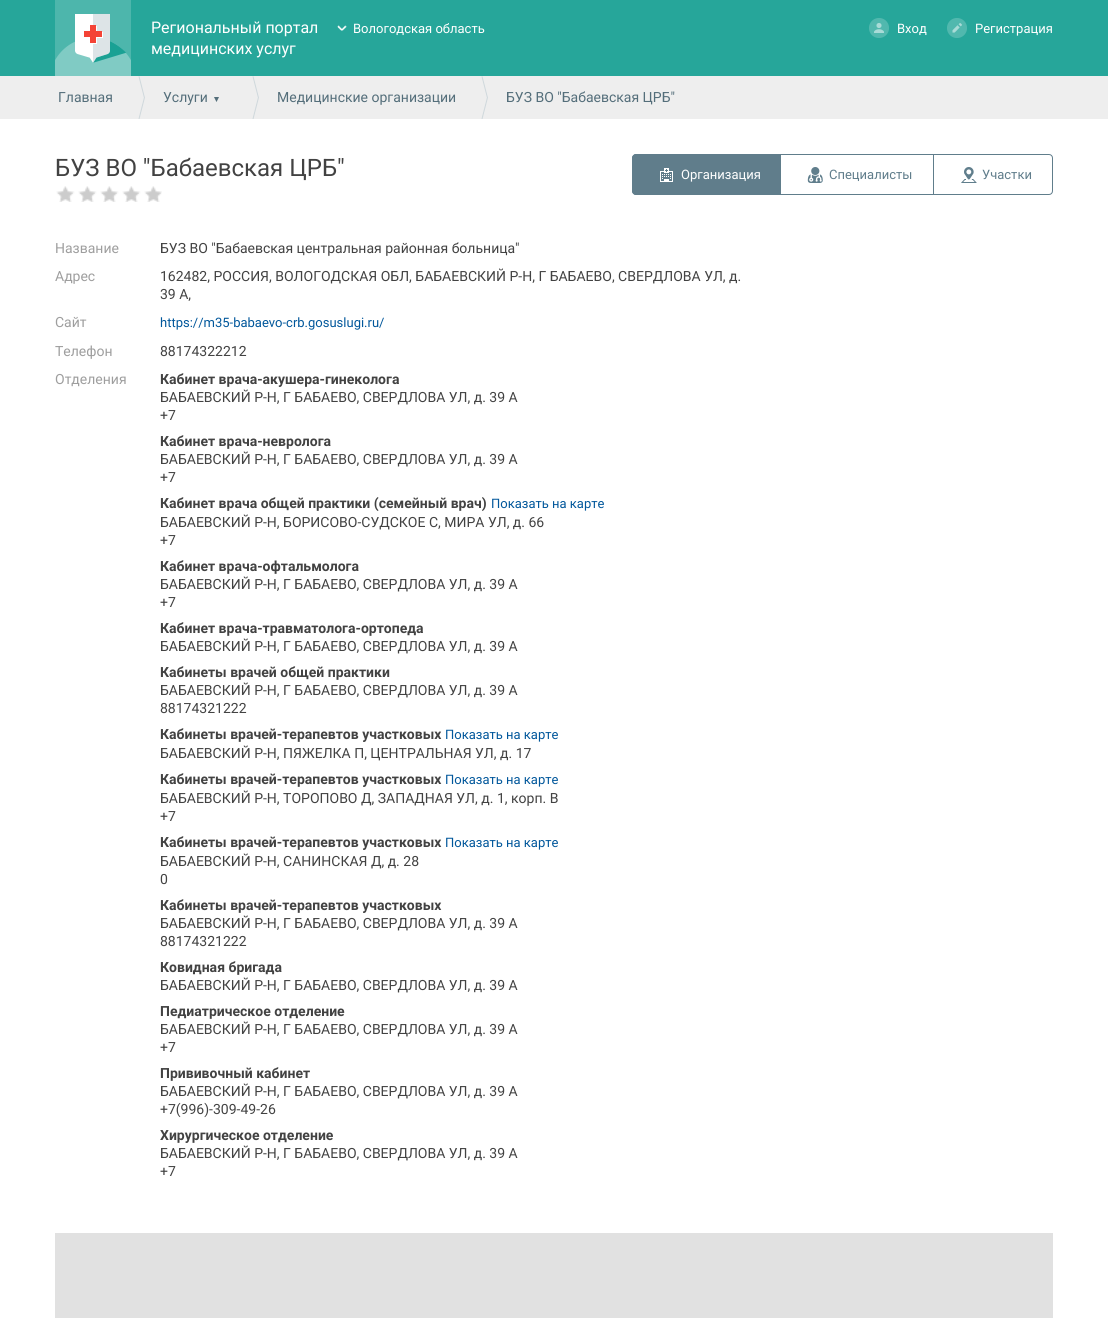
import math
import cairo

surface = cairo.ImageSurface(cairo.FORMAT_RGB24, 1108, 1318)
cr = cairo.Context(surface)
options = cairo.FontOptions()
options.set_hint_metrics(cairo.HINT_METRICS_OFF)
options.set_hint_style(cairo.HINT_STYLE_NONE)
cr.set_font_options(options)
cr.set_miter_limit(4)


def rgb(code):
    cr.set_source_rgb(*(v / 255 for v in bytes.fromhex(code[-6:])))


def image(path, x, y, w, h):
    cr.save()
    cr.set_source_surface(cairo.ImageSurface.create_from_png(path), x, y)
    cr.rectangle(x, y, w, h)
    cr.fill()
    cr.restore()


rgb("#ffffff")
cr.paint()
rgb("#26a69a")
cr.rectangle(0, 0, 1108, 76)
cr.fill()
image("img/1.png", 55, 0, 76, 76)
image("img/2.png", 337, 25, 10, 6)
image("img/3.png", 869, 18, 20, 20)
image("img/4.png", 947, 18, 20, 20)
rgb("#eeeeee")
cr.rectangle(0, 76, 1108, 43)
cr.fill()
image("img/5.png", 138, 76, 7, 43)
image("img/6.png", 214, 97, 5, 5)
image("img/5.png", 252, 76, 7, 43)
image("img/5.png", 481, 76, 7, 43)
image("img/7.png", 56, 186, 106, 16)
rgb("#607d8b")
cr.new_path()
cr.move_to(636, 154)
cr.line_to(781, 154)
cr.line_to(781, 195)
cr.line_to(636, 195)
cr.curve_to(634, 195, 632, 193, 632, 191)
cr.line_to(632, 158)
cr.curve_to(632, 156, 634, 154, 636, 154)
cr.close_path()
cr.fill()
image("img/8.png", 660, 168, 13, 14)
cr.new_path()
cr.move_to(636, 154.5)
cr.line_to(780.5, 154.5)
cr.line_to(780.5, 194.5)
cr.line_to(636, 194.5)
cr.curve_to(634, 194.5, 632.5, 193, 632.5, 191)
cr.line_to(632.5, 158)
cr.curve_to(632.5, 156, 634, 154.5, 636, 154.5)
cr.close_path()
cr.set_line_width(1)
cr.stroke()
image("img/9.png", 807, 167, 16, 16)
cr.rectangle(780.5, 154.5, 153, 40)
cr.stroke()
rgb("#ffffff")
cr.new_path()
cr.move_to(933, 154)
cr.line_to(1049, 154)
cr.curve_to(1051, 154, 1053, 156, 1053, 158)
cr.line_to(1053, 191)
cr.curve_to(1053, 193, 1051, 195, 1049, 195)
cr.line_to(933, 195)
cr.close_path()
cr.fill()
image("img/10.png", 961, 167, 16, 16)
cr.new_path()
cr.move_to(933.5, 154.5)
cr.line_to(1049, 154.5)
cr.curve_to(1051, 154.5, 1052.5, 156, 1052.5, 158)
cr.line_to(1052.5, 191)
cr.curve_to(1052.5, 193, 1051, 194.5, 1049, 194.5)
cr.line_to(933.5, 194.5)
cr.close_path()
rgb("#607d8b")
cr.stroke()
rgb("#e1e1e1")
cr.rectangle(55, 1233, 998, 85)
cr.fill()
cr.select_font_face("Roboto")
cr.set_font_size(16)
rgb("#ffffff")
cr.move_to(151, 33)
cr.show_text("Региональный портал")
cr.move_to(151, 54)
cr.show_text("медицинских услуг")
cr.set_font_size(13)
for x, y, s in [
    (353, 33, "Вологодская область"),
    (897, 33, "Вход"),
    (975, 33, "Регистрация"),
]:
    cr.move_to(x, y)
    cr.show_text(s)
cr.set_font_size(14)
rgb("#546e7a")
for x, y, s in [
    (58, 102, "Главная"),
    (163, 102, "Услуги"),
    (277, 102, "Медицинские организации"),
    (506, 102, "БУЗ ВО \"Бабаевская ЦРБ\""),
]:
    cr.move_to(x, y)
    cr.show_text(s)
cr.set_font_size(24)
rgb("#424242")
cr.move_to(55, 176)
cr.show_text("БУЗ ВО \"Бабаевская ЦРБ\"")
cr.set_font_size(13)
rgb("#ffffff")
cr.move_to(681, 179)
cr.show_text("Организация")
rgb("#607d8b")
cr.move_to(829, 179)
cr.show_text("Специалисты")
cr.move_to(982, 179)
cr.show_text("Участки")
cr.set_font_size(14)
rgb("#9e9e9e")
cr.move_to(55, 253)
cr.show_text("Название")
rgb("#424242")
cr.move_to(160, 253)
cr.show_text("БУЗ ВО \"Бабаевская центральная районная больница\"")
rgb("#9e9e9e")
cr.move_to(55, 281)
cr.show_text("Адрес")
rgb("#424242")
cr.move_to(160, 281)
cr.show_text("162482, РОССИЯ, ВОЛОГОДСКАЯ ОБЛ, БАБАЕВСКИЙ Р-Н, Г БАБАЕВО, СВЕРДЛОВА УЛ, д.")
cr.move_to(160, 299)
cr.show_text("39 А,")
rgb("#9e9e9e")
cr.move_to(55, 327)
cr.show_text("Сайт")
cr.set_font_size(13)
rgb("#01579b")
cr.move_to(160, 327)
cr.show_text("https://m35-babaevo-crb.gosuslugi.ru/")
cr.set_font_size(14)
rgb("#9e9e9e")
cr.move_to(55, 356)
cr.show_text("Телефон")
rgb("#424242")
cr.move_to(160, 356)
cr.show_text("88174322212")
rgb("#9e9e9e")
cr.move_to(55, 384)
cr.show_text("Отделения")
cr.select_font_face("Roboto", cairo.FONT_SLANT_NORMAL, cairo.FONT_WEIGHT_BOLD)
rgb("#424242")
cr.move_to(160, 384)
cr.show_text("Кабинет врача-акушера-гинеколога")
cr.select_font_face("Roboto")
cr.move_to(160, 402)
cr.show_text("БАБАЕВСКИЙ Р-Н, Г БАБАЕВО, СВЕРДЛОВА УЛ, д. 39 А")
cr.move_to(160, 420)
cr.show_text("+7")
cr.select_font_face("Roboto", cairo.FONT_SLANT_NORMAL, cairo.FONT_WEIGHT_BOLD)
cr.move_to(160, 446)
cr.show_text("Кабинет врача-невролога")
cr.select_font_face("Roboto")
cr.move_to(160, 464)
cr.show_text("БАБАЕВСКИЙ Р-Н, Г БАБАЕВО, СВЕРДЛОВА УЛ, д. 39 А")
cr.move_to(160, 482)
cr.show_text("+7")
cr.select_font_face("Roboto", cairo.FONT_SLANT_NORMAL, cairo.FONT_WEIGHT_BOLD)
cr.move_to(160, 508)
cr.show_text("Кабинет врача общей практики (семейный врач)")
cr.select_font_face("Roboto")
cr.set_font_size(13)
rgb("#01579b")
cr.move_to(491, 508)
cr.show_text("Показать на карте")
cr.set_font_size(14)
rgb("#424242")
cr.move_to(160, 527)
cr.show_text("БАБАЕВСКИЙ Р-Н, БОРИСОВО-СУДСКОЕ С, МИРА УЛ, д. 66")
cr.move_to(160, 545)
cr.show_text("+7")
cr.select_font_face("Roboto", cairo.FONT_SLANT_NORMAL, cairo.FONT_WEIGHT_BOLD)
cr.move_to(160, 571)
cr.show_text("Кабинет врача-офтальмолога")
cr.select_font_face("Roboto")
cr.move_to(160, 589)
cr.show_text("БАБАЕВСКИЙ Р-Н, Г БАБАЕВО, СВЕРДЛОВА УЛ, д. 39 А")
cr.move_to(160, 607)
cr.show_text("+7")
cr.select_font_face("Roboto", cairo.FONT_SLANT_NORMAL, cairo.FONT_WEIGHT_BOLD)
cr.move_to(160, 633)
cr.show_text("Кабинет врача-травматолога-ортопеда")
cr.select_font_face("Roboto")
cr.move_to(160, 651)
cr.show_text("БАБАЕВСКИЙ Р-Н, Г БАБАЕВО, СВЕРДЛОВА УЛ, д. 39 А")
cr.select_font_face("Roboto", cairo.FONT_SLANT_NORMAL, cairo.FONT_WEIGHT_BOLD)
cr.move_to(160, 677)
cr.show_text("Кабинеты врачей общей практики")
cr.select_font_face("Roboto")
cr.move_to(160, 695)
cr.show_text("БАБАЕВСКИЙ Р-Н, Г БАБАЕВО, СВЕРДЛОВА УЛ, д. 39 А")
cr.move_to(160, 713)
cr.show_text("88174321222")
cr.select_font_face("Roboto", cairo.FONT_SLANT_NORMAL, cairo.FONT_WEIGHT_BOLD)
cr.move_to(160, 739)
cr.show_text("Кабинеты врачей-терапевтов участковых")
cr.select_font_face("Roboto")
cr.set_font_size(13)
rgb("#01579b")
cr.move_to(445, 739)
cr.show_text("Показать на карте")
cr.set_font_size(14)
rgb("#424242")
cr.move_to(160, 758)
cr.show_text("БАБАЕВСКИЙ Р-Н, ПЯЖЕЛКА П, ЦЕНТРАЛЬНАЯ УЛ, д. 17")
cr.select_font_face("Roboto", cairo.FONT_SLANT_NORMAL, cairo.FONT_WEIGHT_BOLD)
cr.move_to(160, 784)
cr.show_text("Кабинеты врачей-терапевтов участковых")
cr.select_font_face("Roboto")
cr.set_font_size(13)
rgb("#01579b")
cr.move_to(445, 784)
cr.show_text("Показать на карте")
cr.set_font_size(14)
rgb("#424242")
cr.move_to(160, 803)
cr.show_text("БАБАЕВСКИЙ Р-Н, ТОРОПОВО Д, ЗАПАДНАЯ УЛ, д. 1, корп. В")
cr.move_to(160, 821)
cr.show_text("+7")
cr.select_font_face("Roboto", cairo.FONT_SLANT_NORMAL, cairo.FONT_WEIGHT_BOLD)
cr.move_to(160, 847)
cr.show_text("Кабинеты врачей-терапевтов участковых")
cr.select_font_face("Roboto")
cr.set_font_size(13)
rgb("#01579b")
cr.move_to(445, 847)
cr.show_text("Показать на карте")
cr.set_font_size(14)
rgb("#424242")
cr.move_to(160, 866)
cr.show_text("БАБАЕВСКИЙ Р-Н, САНИНСКАЯ Д, д. 28")
cr.move_to(160, 884)
cr.show_text("0")
cr.select_font_face("Roboto", cairo.FONT_SLANT_NORMAL, cairo.FONT_WEIGHT_BOLD)
cr.move_to(160, 910)
cr.show_text("Кабинеты врачей-терапевтов участковых")
cr.select_font_face("Roboto")
cr.move_to(160, 928)
cr.show_text("БАБАЕВСКИЙ Р-Н, Г БАБАЕВО, СВЕРДЛОВА УЛ, д. 39 А")
cr.move_to(160, 946)
cr.show_text("88174321222")
cr.select_font_face("Roboto", cairo.FONT_SLANT_NORMAL, cairo.FONT_WEIGHT_BOLD)
cr.move_to(160, 972)
cr.show_text("Ковидная бригада")
cr.select_font_face("Roboto")
cr.move_to(160, 990)
cr.show_text("БАБАЕВСКИЙ Р-Н, Г БАБАЕВО, СВЕРДЛОВА УЛ, д. 39 А")
cr.select_font_face("Roboto", cairo.FONT_SLANT_NORMAL, cairo.FONT_WEIGHT_BOLD)
cr.move_to(160, 1016)
cr.show_text("Педиатрическое отделение")
cr.select_font_face("Roboto")
cr.move_to(160, 1034)
cr.show_text("БАБАЕВСКИЙ Р-Н, Г БАБАЕВО, СВЕРДЛОВА УЛ, д. 39 А")
cr.move_to(160, 1052)
cr.show_text("+7")
cr.select_font_face("Roboto", cairo.FONT_SLANT_NORMAL, cairo.FONT_WEIGHT_BOLD)
cr.move_to(160, 1078)
cr.show_text("Прививочный кабинет")
cr.select_font_face("Roboto")
cr.move_to(160, 1096)
cr.show_text("БАБАЕВСКИЙ Р-Н, Г БАБАЕВО, СВЕРДЛОВА УЛ, д. 39 А")
cr.move_to(160, 1114)
cr.show_text("+7(996)-309-49-26")
cr.select_font_face("Roboto", cairo.FONT_SLANT_NORMAL, cairo.FONT_WEIGHT_BOLD)
cr.move_to(160, 1140)
cr.show_text("Хирургическое отделение")
cr.select_font_face("Roboto")
cr.move_to(160, 1158)
cr.show_text("БАБАЕВСКИЙ Р-Н, Г БАБАЕВО, СВЕРДЛОВА УЛ, д. 39 А")
cr.move_to(160, 1176)
cr.show_text("+7")
surface.write_to_png("page.png")
